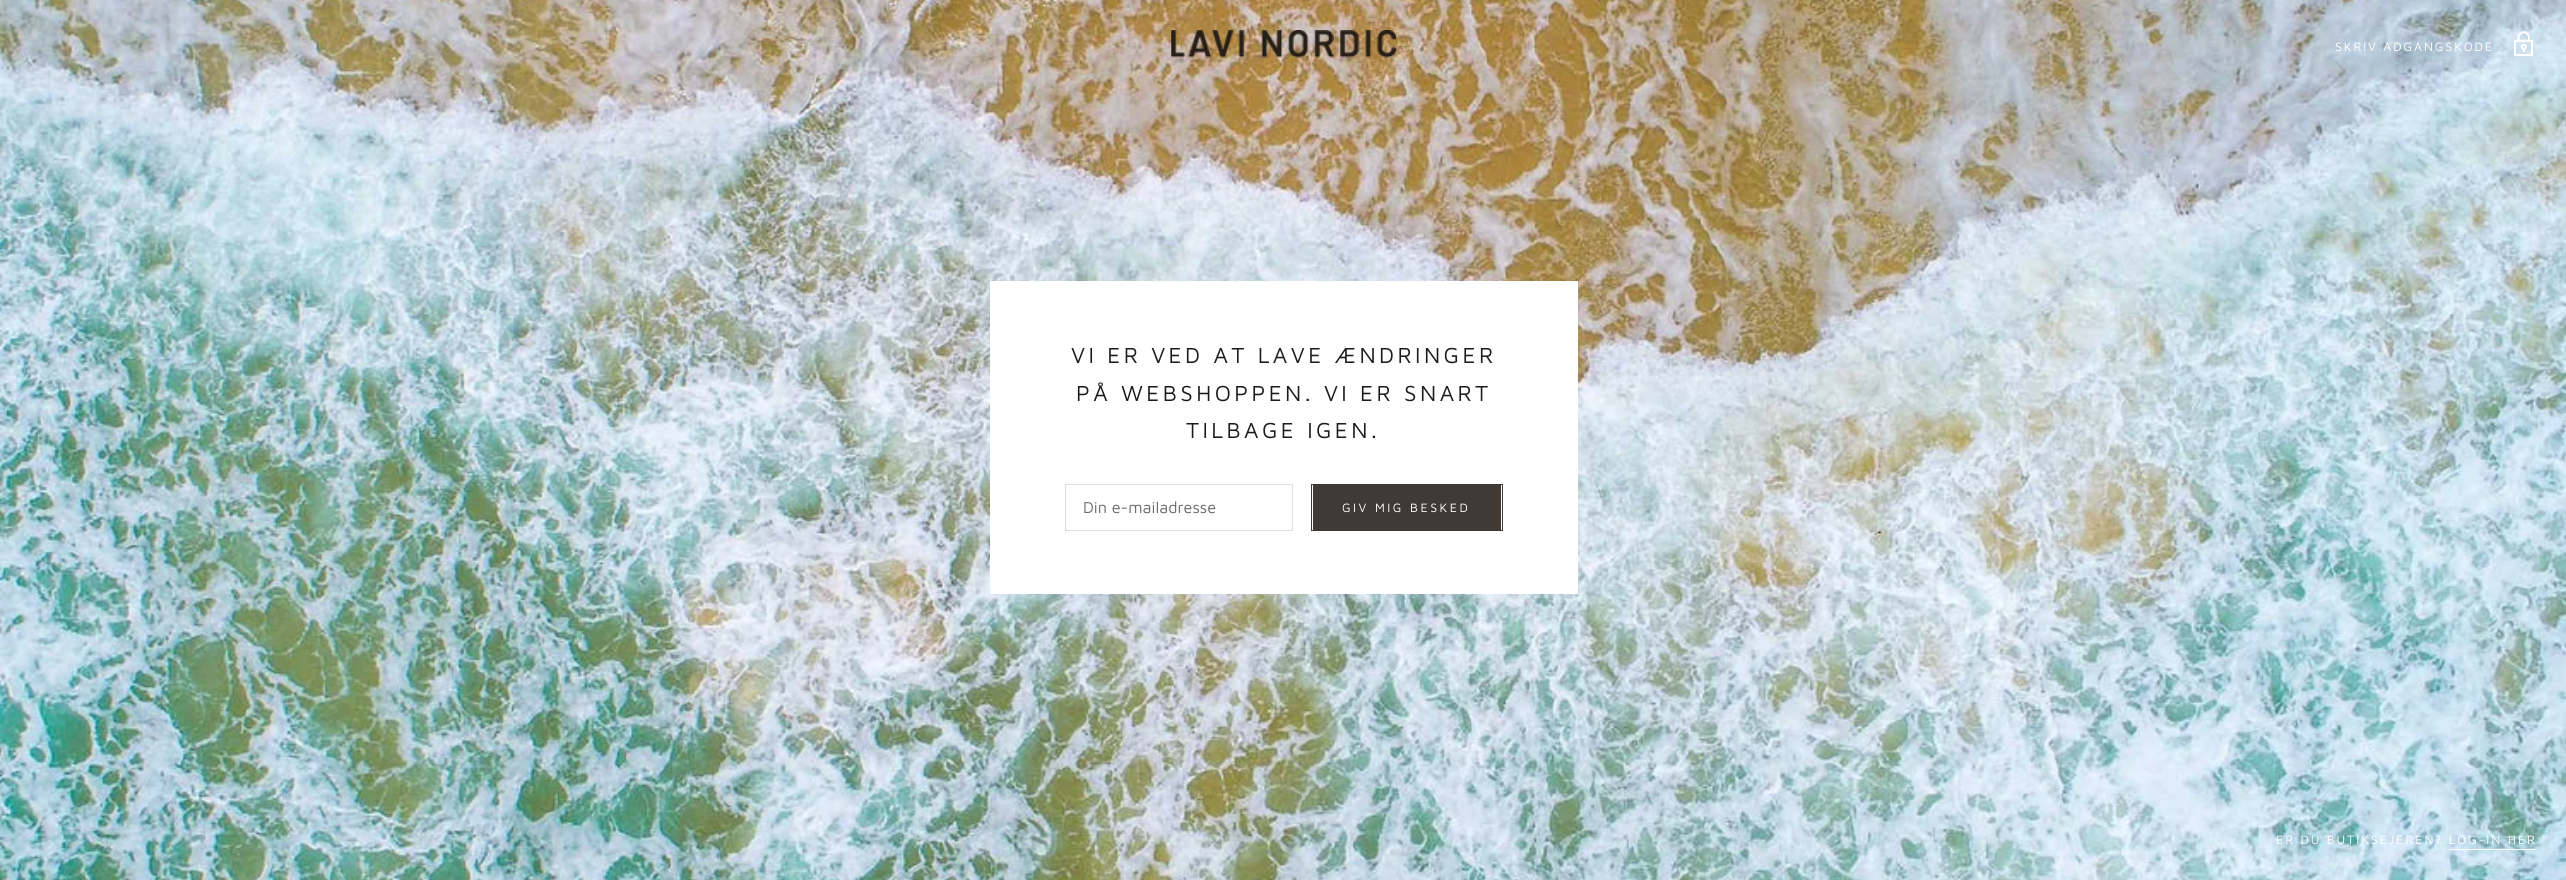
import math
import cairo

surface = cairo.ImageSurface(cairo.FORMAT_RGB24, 2566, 880)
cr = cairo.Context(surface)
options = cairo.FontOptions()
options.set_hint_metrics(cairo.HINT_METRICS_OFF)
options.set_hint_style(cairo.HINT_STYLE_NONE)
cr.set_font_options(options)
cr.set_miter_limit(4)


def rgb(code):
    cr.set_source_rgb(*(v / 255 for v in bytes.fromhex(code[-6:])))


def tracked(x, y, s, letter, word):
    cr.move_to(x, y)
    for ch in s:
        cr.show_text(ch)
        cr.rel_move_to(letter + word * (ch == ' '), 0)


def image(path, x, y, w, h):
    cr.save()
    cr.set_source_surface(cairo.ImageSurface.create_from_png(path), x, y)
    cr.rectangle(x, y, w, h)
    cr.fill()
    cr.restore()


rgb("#ffffff")
cr.paint()
image("img/1.png", 0, 0, 2566, 880)
image("img/2.png", 1171, 30, 226, 28)
image("img/3.png", 2514, 31, 19, 25)
rgb("#ffffff")
cr.rectangle(990, 281, 588, 313)
cr.fill()
cr.rectangle(1065.5, 484.5, 227, 46)
rgb("#dddddd")
cr.set_line_width(1)
cr.stroke()
cr.rectangle(1311.5, 484.5, 191, 46)
rgb("#403934")
cr.stroke()
cr.rectangle(1313, 485, 188, 45)
cr.fill()
rgb("#ffffff")
cr.rectangle(2449, 849, 87, 1)
cr.fill()
cr.select_font_face("Maven Pro")
cr.set_font_size(12.5)
tracked(2335, 51, "SKRIV ADGANGSKODE", 1.9, 0)
cr.set_font_size(22.5)
rgb("#1c1b1b")
for x, y, s in [
    (1071, 363, "VI ER VED AT LAVE ÆNDRINGER"),
    (1076, 401, "PÅ WEBSHOPPEN. VI ER SNART"),
    (1186, 438, "TILBAGE IGEN."),
]:
    tracked(x, y, s, 3.4, 0)
cr.set_font_size(16.25)
rgb("#6a6a6a")
cr.move_to(1083, 513)
cr.show_text("Din e-mailadresse")
cr.set_font_size(12.5)
rgb("#ffffff")
tracked(1342, 512, "GIV MIG BESKED", 2.5, 0)
tracked(2276, 844, "ER DU BUTIKSEJEREN? LOG-IN HÉR", 1.9, 0)
surface.write_to_png("page.png")
